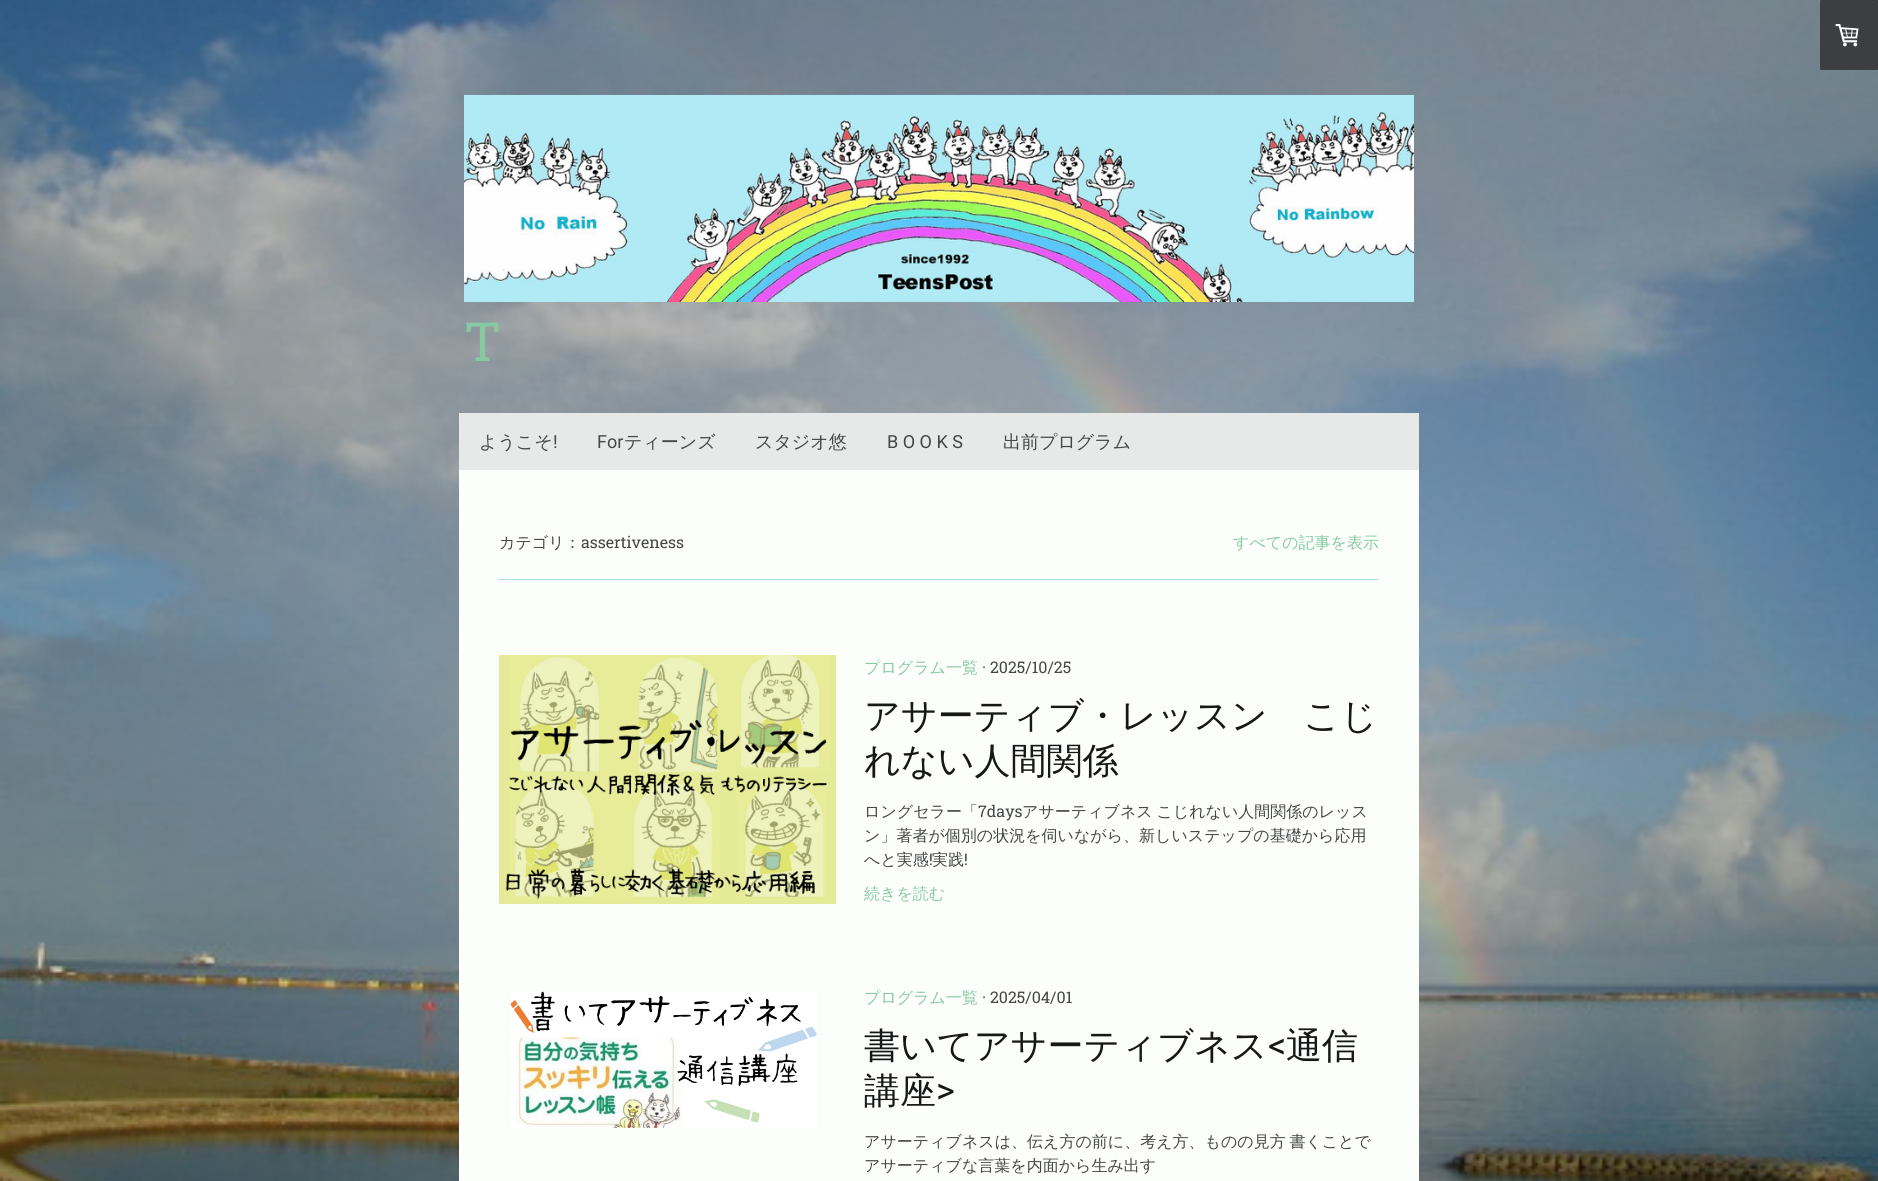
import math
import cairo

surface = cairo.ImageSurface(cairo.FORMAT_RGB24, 1878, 1181)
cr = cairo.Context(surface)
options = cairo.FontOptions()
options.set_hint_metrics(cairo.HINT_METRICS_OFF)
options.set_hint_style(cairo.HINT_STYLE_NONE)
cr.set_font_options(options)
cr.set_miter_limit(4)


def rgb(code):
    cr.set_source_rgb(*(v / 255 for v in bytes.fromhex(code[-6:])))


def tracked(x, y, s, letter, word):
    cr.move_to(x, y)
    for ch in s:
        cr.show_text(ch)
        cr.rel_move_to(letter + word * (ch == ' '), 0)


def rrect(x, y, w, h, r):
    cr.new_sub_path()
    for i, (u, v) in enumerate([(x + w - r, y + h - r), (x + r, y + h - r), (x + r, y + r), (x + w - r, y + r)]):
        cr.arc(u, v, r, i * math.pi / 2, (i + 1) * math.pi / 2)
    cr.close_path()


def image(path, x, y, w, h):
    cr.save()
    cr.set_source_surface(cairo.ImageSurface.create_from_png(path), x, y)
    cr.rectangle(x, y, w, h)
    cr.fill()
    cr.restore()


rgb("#ffffff")
cr.paint()
image("img/1.png", 0, 0, 1878, 1181)
image("img/2.png", 464, 95, 950, 207)
rgb("#e7e9e8")
cr.rectangle(459, 413, 960, 57)
cr.fill()
cr.set_source_rgba(0.2, 0.2, 0.2, 0.85)
rrect(1820, 0, 58, 70, 1)
cr.fill()
image("img/3.png", 1835, 24, 24, 23)
rgb("#fcfefc")
cr.rectangle(459, 470, 960, 711)
cr.fill()
rgb("#add8e6")
cr.rectangle(499, 579, 880, 1)
cr.fill()
image("img/4.png", 499, 655, 337, 249)
image("img/5.png", 510, 991, 307, 137)
cr.select_font_face("Roboto Slab")
cr.set_font_size(54)
rgb("#87c9a3")
cr.move_to(464, 361)
cr.show_text("T")
cr.select_font_face("WenQuanYi Zen Hei Medium")
cr.set_font_size(18)
rgb("#434745")
cr.move_to(479, 448)
cr.show_text("ようこそ")
cr.select_font_face("Roboto")
cr.move_to(553, 448)
cr.show_text("!")
cr.move_to(597, 448)
cr.show_text("For")
cr.select_font_face("WenQuanYi Zen Hei Medium")
cr.move_to(624, 448)
cr.show_text("ティーンズ")
cr.move_to(755, 448)
cr.show_text("スタジオ悠")
cr.select_font_face("Roboto")
cr.move_to(887, 448)
cr.show_text("B O O K S")
cr.select_font_face("WenQuanYi Zen Hei Medium")
cr.move_to(1003, 448)
cr.show_text("出前プログラム")
cr.set_font_size(16)
cr.move_to(499, 548)
cr.show_text("カテゴリ：")
cr.select_font_face("Roboto Slab")
cr.move_to(581, 548)
cr.show_text("assertiveness")
cr.select_font_face("WenQuanYi Zen Hei Medium")
rgb("#87c9a3")
cr.move_to(1233, 548)
cr.show_text("すべての記事を表示")
cr.move_to(864, 673)
cr.show_text("プログラム一覧")
cr.select_font_face("Roboto Slab")
rgb("#434745")
cr.move_to(982, 673)
cr.show_text("· 2025/10/25")
cr.select_font_face("WenQuanYi Zen Hei Medium")
cr.set_font_size(36)
rgb("#161817")
cr.move_to(864, 728)
cr.show_text("アサーティブ・レッスン　こじ")
cr.move_to(864, 773)
cr.show_text("れない人間関係")
cr.set_font_size(16)
rgb("#434745")
cr.move_to(864, 817)
cr.show_text("ロングセラー「")
cr.select_font_face("Roboto Slab")
cr.move_to(978, 817)
cr.show_text("7days")
cr.select_font_face("WenQuanYi Zen Hei Medium")
tracked(1022, 817, "アサーティブネス こじれない人間関係のレッス", 0, -1)
cr.move_to(864, 841)
cr.show_text("ン」著者が個別の状況を伺いながら、新しいステップの基礎から応用")
cr.move_to(864, 865)
cr.show_text("へと実感")
cr.select_font_face("Roboto Slab")
cr.move_to(929, 865)
cr.show_text("!")
cr.select_font_face("WenQuanYi Zen Hei Medium")
cr.move_to(932, 865)
cr.show_text("実践")
cr.select_font_face("Roboto Slab")
cr.move_to(964, 865)
cr.show_text("!")
cr.select_font_face("WenQuanYi Zen Hei Medium")
rgb("#87c9a3")
cr.move_to(864, 899)
cr.show_text("続きを読む")
cr.move_to(864, 1003)
cr.show_text("プログラム一覧")
cr.select_font_face("Roboto Slab")
rgb("#434745")
cr.move_to(982, 1003)
cr.show_text("· 2025/04/01")
cr.select_font_face("WenQuanYi Zen Hei Medium")
cr.set_font_size(36)
rgb("#161817")
cr.move_to(864, 1058)
cr.show_text("書いてアサーティブネス")
cr.select_font_face("Roboto")
cr.move_to(1268, 1058)
cr.show_text("<")
cr.select_font_face("WenQuanYi Zen Hei Medium")
cr.move_to(1286, 1058)
cr.show_text("通信")
cr.move_to(864, 1103)
cr.show_text("講座")
cr.select_font_face("Roboto")
cr.move_to(936, 1103)
cr.show_text(">")
cr.select_font_face("WenQuanYi Zen Hei Medium")
cr.set_font_size(16)
rgb("#434745")
tracked(864, 1147, "アサーティブネスは、伝え方の前に、考え方、ものの見方 書くことで", 0, -1)
cr.move_to(864, 1171)
cr.show_text("アサーティブな言葉を内面から生み出す")
surface.write_to_png("page.png")
